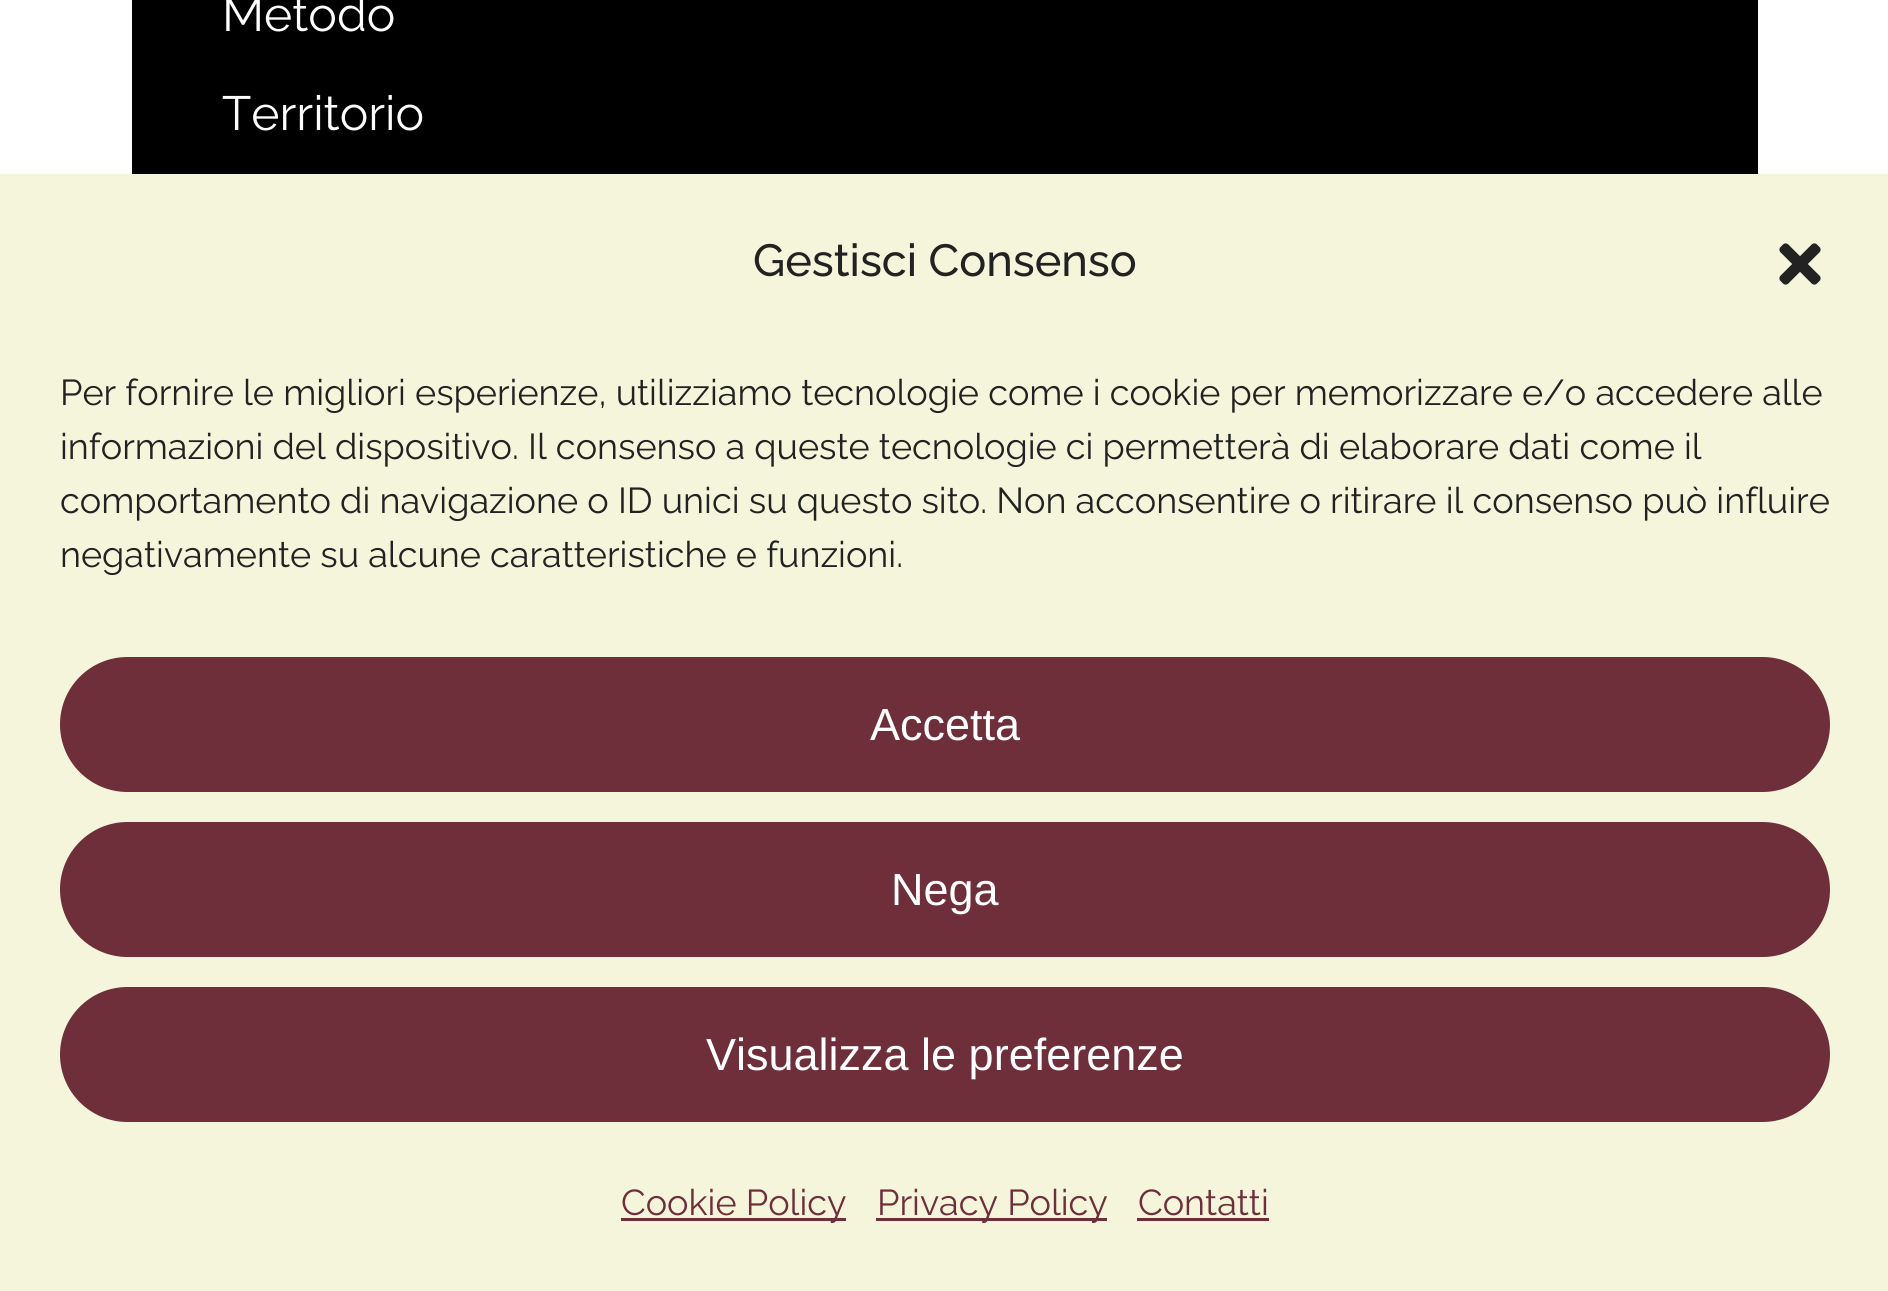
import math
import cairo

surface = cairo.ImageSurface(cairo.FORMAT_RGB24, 1888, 1291)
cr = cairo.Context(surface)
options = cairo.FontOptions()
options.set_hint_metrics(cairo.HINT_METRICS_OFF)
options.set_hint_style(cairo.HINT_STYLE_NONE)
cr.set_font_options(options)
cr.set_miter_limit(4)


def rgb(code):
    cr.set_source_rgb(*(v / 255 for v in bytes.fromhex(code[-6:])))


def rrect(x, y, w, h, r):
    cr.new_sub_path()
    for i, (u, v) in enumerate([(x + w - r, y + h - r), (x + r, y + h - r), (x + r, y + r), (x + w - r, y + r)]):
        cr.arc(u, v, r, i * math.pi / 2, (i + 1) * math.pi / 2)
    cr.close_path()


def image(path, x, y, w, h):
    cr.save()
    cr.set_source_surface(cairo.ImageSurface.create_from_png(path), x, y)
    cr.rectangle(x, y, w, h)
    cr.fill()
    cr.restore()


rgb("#ffffff")
cr.paint()
rgb("#000000")
cr.rectangle(132, 0, 1626, 174)
cr.fill()
rgb("#f5f5dc")
cr.rectangle(0, 174, 1888, 1117)
cr.fill()
image("img/1.png", 1779, 243, 42, 42)
rgb("#6e2e3a")
rrect(61.5, 658.5, 1767, 132, 66)
cr.fill_preserve()
cr.set_line_width(3)
cr.stroke()
rrect(61.5, 823.5, 1767, 132, 66)
cr.fill_preserve()
cr.stroke()
rrect(61.5, 988.5, 1767, 132, 66)
cr.fill_preserve()
cr.stroke()
for x, y, w, h, color in [
    (621, 1218, 225, 3, "#6e2e3a"),
    (876, 1218, 231, 3, "#6e2e3a"),
    (1137, 1218, 132, 3, "#6e2e3a"),
]:
    rgb(color)
    cr.rectangle(x, y, w, h)
    cr.fill()
cr.select_font_face("Raleway")
cr.set_font_size(48)
rgb("#ffffff")
cr.move_to(222, 31)
cr.show_text("Metodo")
cr.move_to(222, 130)
cr.show_text("Territorio")
cr.select_font_face("Raleway Medium")
cr.set_font_size(45)
rgb("#222222")
cr.move_to(753, 276)
cr.show_text("Gestisci Consenso")
cr.select_font_face("Raleway")
cr.set_font_size(36)
for x, y, s in [
    (60, 405, "Per fornire le migliori esperienze, utilizziamo tecnologie come i cookie per memorizzare e/o accedere alle"),
    (60, 459, "informazioni del dispositivo. Il consenso a queste tecnologie ci permetterà di elaborare dati come il"),
    (60, 513, "comportamento di navigazione o ID unici su questo sito. Non acconsentire o ritirare il consenso può influire"),
    (60, 567, "negativamente su alcune caratteristiche e funzioni."),
]:
    cr.move_to(x, y)
    cr.show_text(s)
cr.select_font_face("Liberation Sans")
cr.set_font_size(45)
rgb("#ffffff")
for x, y, s in [
    (870, 740, "Accetta"),
    (891, 905, "Nega"),
    (706, 1070, "Visualizza le preferenze"),
]:
    cr.move_to(x, y)
    cr.show_text(s)
cr.select_font_face("Raleway")
cr.set_font_size(36)
rgb("#6e2e3a")
for x, y, s in [
    (621, 1215, "Cookie Policy"),
    (877, 1215, "Privacy Policy"),
    (1138, 1215, "Contatti"),
]:
    cr.move_to(x, y)
    cr.show_text(s)
surface.write_to_png("page.png")
